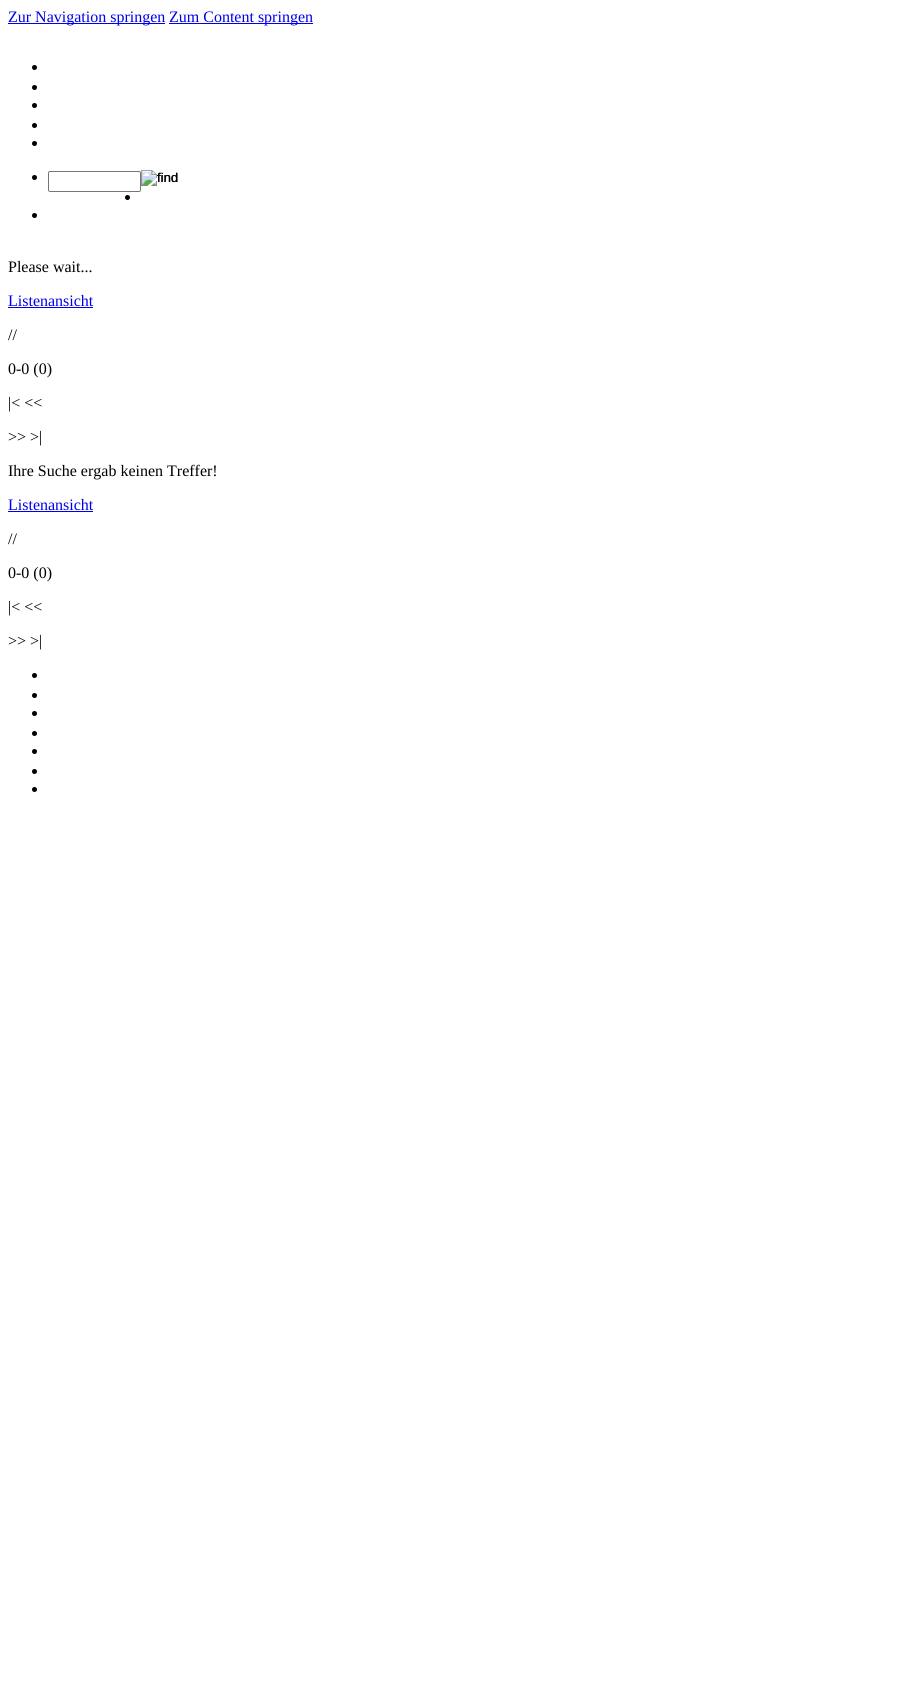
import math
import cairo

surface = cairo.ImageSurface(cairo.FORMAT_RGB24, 898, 1685)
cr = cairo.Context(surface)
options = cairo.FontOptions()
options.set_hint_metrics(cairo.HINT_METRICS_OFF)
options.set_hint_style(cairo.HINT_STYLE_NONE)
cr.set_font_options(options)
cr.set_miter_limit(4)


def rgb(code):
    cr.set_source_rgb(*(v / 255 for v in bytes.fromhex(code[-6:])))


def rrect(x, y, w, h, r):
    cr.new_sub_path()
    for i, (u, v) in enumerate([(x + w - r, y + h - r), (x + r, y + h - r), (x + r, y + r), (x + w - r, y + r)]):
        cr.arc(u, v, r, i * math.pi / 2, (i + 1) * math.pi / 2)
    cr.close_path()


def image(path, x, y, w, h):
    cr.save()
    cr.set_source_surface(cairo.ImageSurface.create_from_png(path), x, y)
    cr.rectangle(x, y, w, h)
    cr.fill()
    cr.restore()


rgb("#ffffff")
cr.paint()
rgb("#0000ee")
cr.rectangle(8, 23, 157, 1)
cr.fill()
cr.rectangle(169, 23, 144, 1)
cr.fill()
rgb("#000000")
cr.arc(34.5, 67.5, 2.5, 0, 2 * math.pi)
cr.fill()
cr.arc(34.5, 87.5, 2.5, 0, 2 * math.pi)
cr.fill()
cr.arc(34.5, 105.5, 2.5, 0, 2 * math.pi)
cr.fill()
cr.arc(34.5, 125.5, 2.5, 0, 2 * math.pi)
cr.fill()
cr.arc(34.5, 143.5, 2.5, 0, 2 * math.pi)
cr.fill()
cr.arc(34.5, 177.5, 2.5, 0, 2 * math.pi)
cr.fill()
rrect(48.5, 171.5, 92, 20, 1.5)
rgb("#767676")
cr.set_line_width(1)
cr.stroke()
image("img/1.png", 141, 170, 37, 16)
rgb("#000000")
cr.arc(127.5, 197.5, 2.5, 0, 2 * math.pi)
cr.fill()
cr.arc(34.5, 215.5, 2.5, 0, 2 * math.pi)
cr.fill()
rgb("#0000ee")
cr.rectangle(8, 307, 85, 1)
cr.fill()
cr.rectangle(8, 511, 85, 1)
cr.fill()
rgb("#000000")
cr.arc(34.5, 675.5, 2.5, 0, 2 * math.pi)
cr.fill()
cr.arc(34.5, 695.5, 2.5, 0, 2 * math.pi)
cr.fill()
cr.arc(34.5, 713.5, 2.5, 0, 2 * math.pi)
cr.fill()
cr.arc(34.5, 733.5, 2.5, 0, 2 * math.pi)
cr.fill()
cr.arc(34.5, 751.5, 2.5, 0, 2 * math.pi)
cr.fill()
cr.arc(34.5, 771.5, 2.5, 0, 2 * math.pi)
cr.fill()
cr.arc(34.5, 789.5, 2.5, 0, 2 * math.pi)
cr.fill()
cr.select_font_face("Liberation Serif")
cr.set_font_size(16)
rgb("#0000ee")
cr.move_to(8, 22)
cr.show_text("Zur Navigation springen")
cr.move_to(169, 22)
cr.show_text("Zum Content springen")
cr.select_font_face("Liberation Sans")
cr.set_font_size(13)
rgb("#000000")
cr.move_to(157, 182)
cr.show_text("find")
cr.select_font_face("Liberation Serif")
cr.set_font_size(16)
cr.move_to(8, 272)
cr.show_text("Please wait...")
rgb("#0000ee")
cr.move_to(8, 306)
cr.show_text("Listenansicht")
rgb("#000000")
for x, y, s in [
    (8, 340, "//"),
    (8, 374, "0-0 (0)"),
    (8, 408, "|< <<"),
    (8, 442, ">> >|"),
    (8, 476, "Ihre Suche ergab keinen Treffer!"),
]:
    cr.move_to(x, y)
    cr.show_text(s)
rgb("#0000ee")
cr.move_to(8, 510)
cr.show_text("Listenansicht")
rgb("#000000")
for x, y, s in [
    (8, 544, "//"),
    (8, 578, "0-0 (0)"),
    (8, 612, "|< <<"),
    (8, 646, ">> >|"),
]:
    cr.move_to(x, y)
    cr.show_text(s)
surface.write_to_png("page.png")
